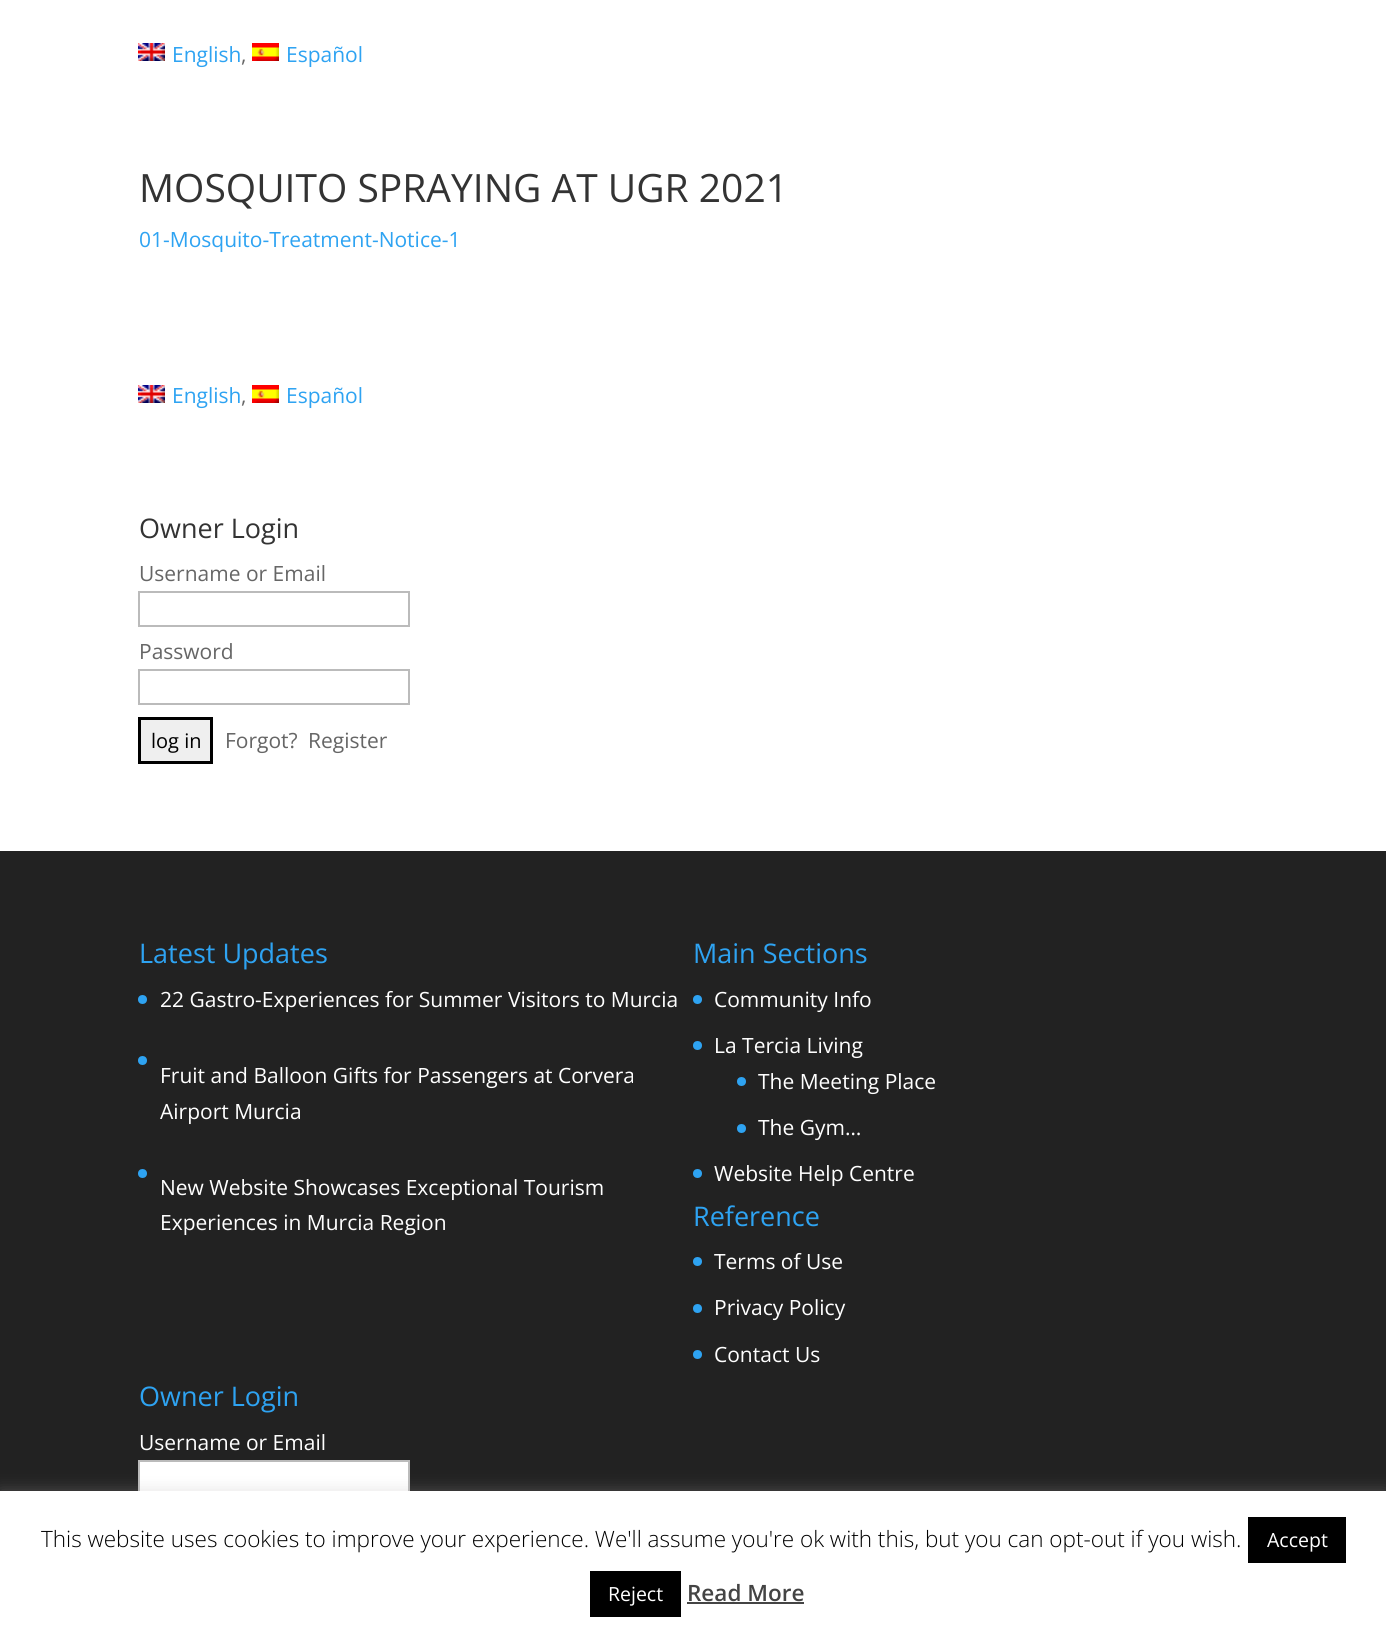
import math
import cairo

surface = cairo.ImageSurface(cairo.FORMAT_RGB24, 1386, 1635)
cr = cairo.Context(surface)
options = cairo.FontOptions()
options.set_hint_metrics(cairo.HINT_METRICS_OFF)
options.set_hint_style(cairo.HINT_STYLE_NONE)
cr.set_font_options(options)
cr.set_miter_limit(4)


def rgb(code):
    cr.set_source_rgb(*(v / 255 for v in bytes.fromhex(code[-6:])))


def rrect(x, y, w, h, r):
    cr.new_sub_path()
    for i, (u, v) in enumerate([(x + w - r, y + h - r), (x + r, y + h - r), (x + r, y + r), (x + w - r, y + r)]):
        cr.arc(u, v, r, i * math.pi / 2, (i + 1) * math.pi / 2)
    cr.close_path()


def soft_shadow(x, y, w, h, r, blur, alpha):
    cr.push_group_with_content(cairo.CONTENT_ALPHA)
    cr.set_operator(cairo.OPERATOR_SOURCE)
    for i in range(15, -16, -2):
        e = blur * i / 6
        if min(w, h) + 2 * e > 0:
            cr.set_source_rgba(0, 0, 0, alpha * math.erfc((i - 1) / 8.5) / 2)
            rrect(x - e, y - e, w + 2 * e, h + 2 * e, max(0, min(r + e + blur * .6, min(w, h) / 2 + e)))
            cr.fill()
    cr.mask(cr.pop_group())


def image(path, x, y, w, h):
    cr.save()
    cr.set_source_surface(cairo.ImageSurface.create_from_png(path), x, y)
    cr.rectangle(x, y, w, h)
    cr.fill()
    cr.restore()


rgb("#ffffff")
cr.paint()
image("img/1.png", 138, 43, 27, 18)
image("img/2.png", 252, 43, 27, 18)
image("img/1.png", 138, 385, 27, 18)
image("img/2.png", 252, 385, 27, 18)
cr.rectangle(139, 592, 270, 34)
rgb("#bbbbbb")
cr.stroke()
cr.rectangle(139, 670, 270, 34)
cr.stroke()
rgb("#efefef")
cr.rectangle(139.5, 718.5, 72, 44)
cr.fill_preserve()
rgb("#000000")
cr.set_line_width(3)
cr.stroke()
rgb("#222222")
cr.rectangle(0, 851, 1386, 640)
cr.fill()
rgb("#2ea3f2")
cr.arc(142.5, 999.5, 4.5, 0, 2 * math.pi)
cr.fill()
cr.arc(142.5, 1060.5, 4.5, 0, 2 * math.pi)
cr.fill()
cr.arc(142.5, 1173.5, 4.5, 0, 2 * math.pi)
cr.fill()
cr.arc(697.5, 999.5, 4.5, 0, 2 * math.pi)
cr.fill()
cr.arc(697.5, 1045.5, 4.5, 0, 2 * math.pi)
cr.fill()
cr.arc(741.5, 1081.5, 4.5, 0, 2 * math.pi)
cr.fill()
cr.arc(741.5, 1128.5, 4.5, 0, 2 * math.pi)
cr.fill()
cr.arc(697.5, 1173.5, 4.5, 0, 2 * math.pi)
cr.fill()
cr.arc(697.5, 1261.5, 4.5, 0, 2 * math.pi)
cr.fill()
cr.arc(697.5, 1308.5, 4.5, 0, 2 * math.pi)
cr.fill()
cr.arc(697.5, 1354.5, 4.5, 0, 2 * math.pi)
cr.fill()
rgb("#ffffff")
cr.rectangle(140, 1462, 268, 29)
cr.fill()
cr.rectangle(139, 1461, 270, 34)
rgb("#bbbbbb")
cr.set_line_width(2)
cr.stroke()
rgb("#acabab")
soft_shadow(0, 1490, 1386, 144, 0, 7.5, 0.3)
for x, y, w, h, color in [
    (0, 1491, 1386, 144, "#ffffff"),
    (1248, 1517, 98, 46, "#000000"),
    (590, 1571, 91, 46, "#000000"),
    (687, 1602, 117, 2, "#444444"),
]:
    rgb(color)
    cr.rectangle(x, y, w, h)
    cr.fill()
cr.select_font_face("Open Sans")
cr.set_font_size(21)
rgb("#2ea3f2")
cr.move_to(172, 62)
cr.show_text("English")
rgb("#666666")
cr.move_to(241, 62)
cr.show_text(",")
rgb("#2ea3f2")
cr.move_to(286, 62)
cr.show_text("Español")
cr.set_font_size(39)
rgb("#333333")
cr.move_to(139, 202)
cr.show_text("MOSQUITO SPRAYING AT UGR 2021")
cr.set_font_size(21)
rgb("#2ea3f2")
cr.move_to(139, 247)
cr.show_text("01-Mosquito-Treatment-Notice-1")
cr.move_to(172, 403)
cr.show_text("English")
rgb("#666666")
cr.move_to(241, 403)
cr.show_text(",")
rgb("#2ea3f2")
cr.move_to(286, 403)
cr.show_text("Español")
cr.set_font_size(27)
rgb("#333333")
cr.move_to(139, 538)
cr.show_text("Owner Login")
cr.set_font_size(21)
rgb("#666666")
cr.move_to(139, 581)
cr.show_text("Username or Email")
cr.move_to(139, 659)
cr.show_text("Password")
cr.set_font_size(20)
rgb("#000000")
cr.move_to(151, 748)
cr.show_text("log in")
cr.set_font_size(21)
rgb("#666666")
cr.move_to(225, 748)
cr.show_text("Forgot?")
cr.move_to(308, 748)
cr.show_text("Register")
cr.set_font_size(27)
rgb("#2ea3f2")
cr.move_to(139, 963)
cr.show_text("Latest Updates")
cr.set_font_size(21)
rgb("#ffffff")
for x, y, s in [
    (160, 1007, "22 Gastro-Experiences for Summer Visitors to Murcia"),
    (160, 1083, "Fruit and Balloon Gifts for Passengers at Corvera"),
    (160, 1119, "Airport Murcia"),
    (160, 1195, "New Website Showcases Exceptional Tourism"),
    (160, 1230, "Experiences in Murcia Region"),
]:
    cr.move_to(x, y)
    cr.show_text(s)
cr.set_font_size(27)
rgb("#2ea3f2")
cr.move_to(693, 963)
cr.show_text("Main Sections")
cr.set_font_size(21)
rgb("#ffffff")
for x, y, s in [
    (714, 1007, "Community Info"),
    (714, 1053, "La Tercia Living"),
    (758, 1089, "The Meeting Place"),
    (758, 1135, "The Gym…"),
    (714, 1181, "Website Help Centre"),
]:
    cr.move_to(x, y)
    cr.show_text(s)
cr.set_font_size(27)
rgb("#2ea3f2")
cr.move_to(693, 1226)
cr.show_text("Reference")
cr.set_font_size(21)
rgb("#ffffff")
for x, y, s in [
    (714, 1269, "Terms of Use"),
    (714, 1315, "Privacy Policy"),
    (714, 1362, "Contact Us"),
]:
    cr.move_to(x, y)
    cr.show_text(s)
cr.set_font_size(27)
rgb("#2ea3f2")
cr.move_to(139, 1406)
cr.show_text("Owner Login")
cr.set_font_size(21)
rgb("#ffffff")
cr.move_to(139, 1450)
cr.show_text("Username or Email")
cr.select_font_face("Open Sans Light")
cr.set_font_size(22.5)
rgb("#000000")
cr.move_to(41, 1547)
cr.show_text("This website uses cookies to improve your experience. We'll assume you're ok with this, but you can opt-out if you wish.")
cr.select_font_face("Open Sans")
cr.set_font_size(19.5)
rgb("#ffffff")
cr.move_to(1267, 1547)
cr.show_text("Accept")
cr.move_to(608, 1601)
cr.show_text("Reject")
cr.select_font_face("Open Sans SemiBold")
cr.set_font_size(22.5)
rgb("#444444")
cr.move_to(687, 1601)
cr.show_text("Read More")
surface.write_to_png("page.png")
